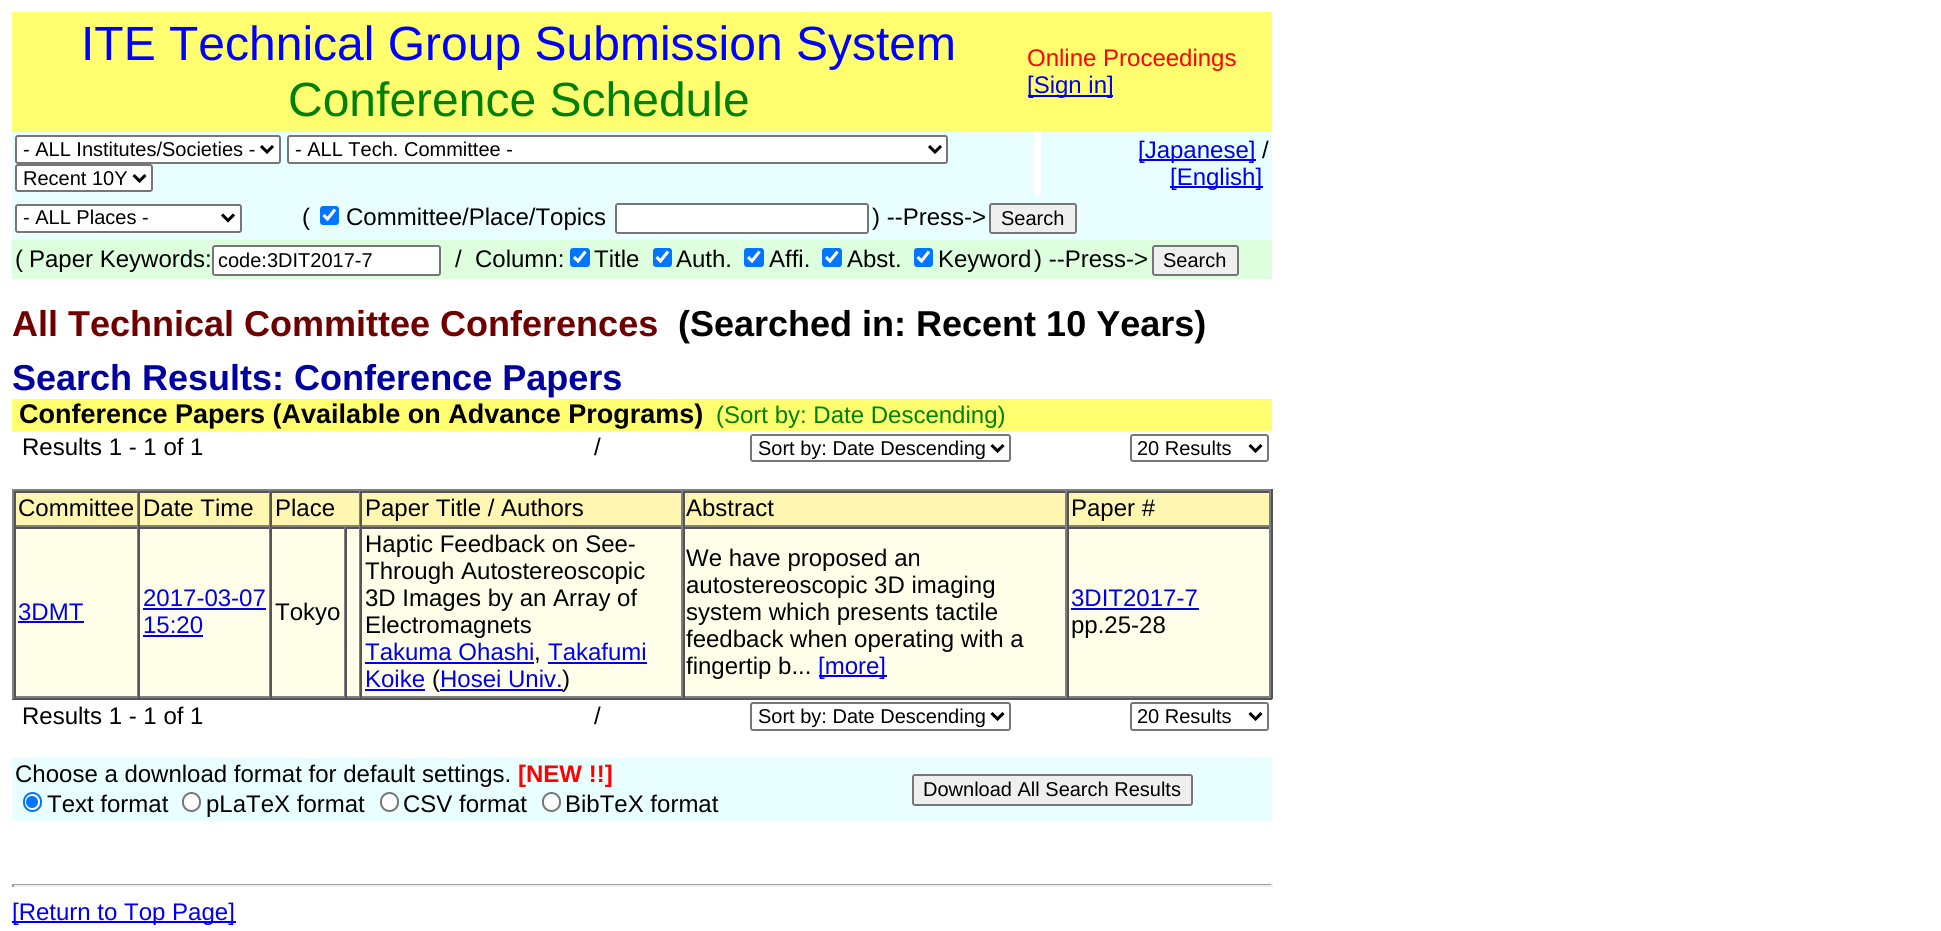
import math
import cairo

surface = cairo.ImageSurface(cairo.FORMAT_RGB24, 1941, 931)
cr = cairo.Context(surface)
options = cairo.FontOptions()
options.set_hint_metrics(cairo.HINT_METRICS_OFF)
options.set_hint_style(cairo.HINT_STYLE_NONE)
cr.set_font_options(options)
cr.set_miter_limit(4)


def rgb(code):
    cr.set_source_rgb(*(v / 255 for v in bytes.fromhex(code[-6:])))


def rrect(x, y, w, h, r):
    cr.new_sub_path()
    for i, (u, v) in enumerate([(x + w - r, y + h - r), (x + r, y + h - r), (x + r, y + r), (x + w - r, y + r)]):
        cr.arc(u, v, r, i * math.pi / 2, (i + 1) * math.pi / 2)
    cr.close_path()


rgb("#ffffff")
cr.paint()
for x, y, w, h, color in [
    (12, 12, 1260, 120, "#ffff6f"),
    (1028, 95, 85, 2, "#0000ee"),
    (12, 132, 1022, 63, "#e9ffff"),
]:
    rgb(color)
    cr.rectangle(x, y, w, h)
    cr.fill()
rgb("#ffffff")
rrect(16, 136, 264, 27, 2)
cr.fill_preserve()
rgb("#767676")
cr.stroke()
cr.new_path()
cr.move_to(261, 146)
cr.line_to(267, 152)
cr.line_to(273, 146)
rgb("#000000")
cr.set_line_width(3)
cr.stroke()
rgb("#ffffff")
rrect(288, 136, 659, 27, 2)
cr.fill_preserve()
rgb("#767676")
cr.set_line_width(2)
cr.stroke()
cr.new_path()
cr.move_to(929, 146)
cr.line_to(935, 152)
cr.line_to(941, 146)
rgb("#000000")
cr.set_line_width(3)
cr.stroke()
rgb("#ffffff")
rrect(16, 165, 136, 26, 2)
cr.fill_preserve()
rgb("#767676")
cr.set_line_width(2)
cr.stroke()
cr.new_path()
cr.move_to(133.5, 175)
cr.line_to(139.5, 181)
cr.line_to(145.5, 175)
rgb("#000000")
cr.set_line_width(3)
cr.stroke()
for x, y, w, h, color in [
    (1041, 132, 231, 63, "#e9ffff"),
    (1139, 159, 117, 2, "#0000ee"),
    (1170, 186, 93, 2, "#0000ee"),
    (12, 195, 1260, 45, "#e9ffff"),
]:
    rgb(color)
    cr.rectangle(x, y, w, h)
    cr.fill()
rgb("#ffffff")
rrect(16, 205, 225, 27, 2)
cr.fill_preserve()
rgb("#767676")
cr.set_line_width(2)
cr.stroke()
cr.new_path()
cr.move_to(222, 214.5)
cr.line_to(228, 220.5)
cr.line_to(234, 214.5)
rgb("#000000")
cr.set_line_width(3)
cr.stroke()
rgb("#0075ff")
rrect(320, 206, 19, 19, 3)
cr.fill()
cr.new_path()
cr.move_to(323.5, 215)
cr.line_to(327.5, 219)
cr.line_to(335, 209.5)
rgb("#ffffff")
cr.set_line_width(3.1)
cr.stroke()
rrect(616, 204, 252, 29, 2)
cr.fill_preserve()
rgb("#767676")
cr.set_line_width(2)
cr.stroke()
rgb("#efefef")
rrect(990, 204, 86, 29, 2)
cr.fill_preserve()
rgb("#767676")
cr.stroke()
rgb("#deffde")
cr.rectangle(12, 240, 1260, 39)
cr.fill()
rgb("#ffffff")
rrect(213, 246, 227, 29, 2)
cr.fill_preserve()
rgb("#767676")
cr.stroke()
rgb("#0075ff")
rrect(570, 248, 20, 19, 3)
cr.fill()
cr.new_path()
cr.move_to(574, 257)
cr.line_to(578, 261)
cr.line_to(585.5, 251.5)
rgb("#ffffff")
cr.set_line_width(3.1)
cr.stroke()
rgb("#0075ff")
rrect(653, 248, 19, 19, 3)
cr.fill()
cr.new_path()
cr.move_to(656.5, 257)
cr.line_to(660.5, 261)
cr.line_to(668, 251.5)
rgb("#ffffff")
cr.stroke()
rgb("#0075ff")
rrect(744, 248, 20, 19, 3)
cr.fill()
cr.new_path()
cr.move_to(748, 257)
cr.line_to(752, 261)
cr.line_to(759.5, 251.5)
rgb("#ffffff")
cr.stroke()
rgb("#0075ff")
rrect(822, 248, 20, 19, 3)
cr.fill()
cr.new_path()
cr.move_to(826, 257)
cr.line_to(830, 261)
cr.line_to(837.5, 251.5)
rgb("#ffffff")
cr.stroke()
rgb("#0075ff")
rrect(914, 248, 19, 19, 3)
cr.fill()
cr.new_path()
cr.move_to(917.5, 257)
cr.line_to(921.5, 261)
cr.line_to(929, 251.5)
rgb("#ffffff")
cr.stroke()
rgb("#efefef")
rrect(1153, 246, 85, 29, 2)
cr.fill_preserve()
rgb("#767676")
cr.set_line_width(2)
cr.stroke()
rgb("#ffff6f")
cr.rectangle(12, 399, 1260, 32)
cr.fill()
rrect(751, 435, 259, 26, 2)
rgb("#767676")
cr.stroke()
cr.new_path()
cr.move_to(991.5, 445)
cr.line_to(997.5, 451)
cr.line_to(1003.5, 445)
rgb("#000000")
cr.set_line_width(3)
cr.stroke()
rrect(1131, 435, 137, 26, 2)
rgb("#767676")
cr.set_line_width(2)
cr.stroke()
cr.new_path()
cr.move_to(1249.5, 445)
cr.line_to(1255.5, 451)
cr.line_to(1261.5, 445)
rgb("#000000")
cr.set_line_width(3)
cr.stroke()
for x, y, w, h, color in [
    (12, 489, 1260, 2, "#808080"),
    (1271, 489, 2, 210, "#555555"),
    (12, 698, 1260, 2, "#555555"),
    (12, 489, 2, 210, "#808080"),
    (16, 493, 121, 32, "#fff6b1"),
    (14, 491, 1257, 2, "#555555"),
    (137, 491, 1, 36, "#808080"),
    (14, 525, 124, 2, "#808080"),
    (14, 491, 2, 36, "#555555"),
    (140, 493, 129, 32, "#fff6b1"),
    (269, 491, 1, 36, "#808080"),
    (138, 525, 132, 2, "#808080"),
    (138, 491, 2, 36, "#555555"),
    (272, 493, 87, 32, "#fff6b1"),
    (359, 491, 1, 36, "#808080"),
    (270, 525, 90, 2, "#808080"),
    (270, 491, 2, 36, "#555555"),
    (362, 493, 319, 32, "#fff6b1"),
    (681, 491, 2, 36, "#808080"),
    (360, 525, 323, 2, "#808080"),
    (360, 491, 2, 36, "#555555"),
    (685, 493, 380, 32, "#fff6b1"),
    (1065, 491, 2, 36, "#808080"),
    (683, 525, 384, 2, "#808080"),
    (683, 491, 2, 36, "#555555"),
    (1069, 493, 200, 32, "#fff6b1"),
    (1269, 491, 2, 36, "#808080"),
    (1067, 525, 204, 2, "#808080"),
    (1067, 491, 2, 36, "#555555"),
    (16, 529, 121, 167, "#ffffe9"),
    (14, 527, 1257, 2, "#555555"),
    (137, 527, 1, 171, "#808080"),
    (14, 696, 124, 2, "#808080"),
    (14, 527, 2, 171, "#555555"),
    (18, 621, 66, 2, "#0000ee"),
    (140, 529, 129, 167, "#ffffe9"),
    (269, 527, 1, 171, "#808080"),
    (138, 696, 132, 2, "#808080"),
    (138, 527, 2, 171, "#555555"),
    (143, 608, 123, 2, "#0000ee"),
    (143, 635, 60, 2, "#0000ee"),
    (272, 529, 72, 167, "#ffffe9"),
    (344, 527, 1, 171, "#808080"),
    (270, 696, 75, 2, "#808080"),
    (270, 527, 2, 171, "#555555"),
    (347, 529, 12, 167, "#ffffe9"),
    (359, 527, 1, 171, "#808080"),
    (345, 696, 15, 2, "#808080"),
    (345, 527, 2, 171, "#555555"),
    (362, 529, 319, 167, "#ffffe9"),
    (681, 527, 2, 171, "#808080"),
    (360, 696, 323, 2, "#808080"),
    (360, 527, 2, 171, "#555555"),
    (365, 662, 169, 2, "#0000ee"),
    (548, 662, 99, 2, "#0000ee"),
    (365, 689, 60, 2, "#0000ee"),
    (440, 689, 123, 2, "#0000ee"),
    (685, 529, 380, 167, "#ffffe9"),
    (1065, 527, 2, 171, "#808080"),
    (683, 696, 384, 2, "#808080"),
    (683, 527, 2, 171, "#555555"),
    (819, 675, 68, 2, "#0000ee"),
    (1069, 529, 200, 167, "#ffffe9"),
    (1269, 527, 2, 171, "#808080"),
    (1067, 696, 204, 2, "#808080"),
    (1067, 527, 2, 171, "#555555"),
    (1071, 608, 128, 2, "#0000ee"),
]:
    rgb(color)
    cr.rectangle(x, y, w, h)
    cr.fill()
rrect(751, 703, 259, 27, 2)
rgb("#767676")
cr.set_line_width(2)
cr.stroke()
cr.new_path()
cr.move_to(991.5, 713)
cr.line_to(997.5, 719)
cr.line_to(1003.5, 713)
rgb("#000000")
cr.set_line_width(3)
cr.stroke()
rrect(1131, 703, 137, 27, 2)
rgb("#767676")
cr.set_line_width(2)
cr.stroke()
cr.new_path()
cr.move_to(1249.5, 713)
cr.line_to(1255.5, 719)
cr.line_to(1261.5, 713)
rgb("#000000")
cr.set_line_width(3)
cr.stroke()
rgb("#e9ffff")
cr.rectangle(12, 758, 1260, 63)
cr.fill()
rgb("#ffffff")
rrect(24, 793, 17, 18, 8.5)
cr.fill_preserve()
rgb("#0075ff")
cr.set_line_width(2)
cr.stroke()
cr.arc(32, 802, 6, 0, 2 * math.pi)
cr.fill()
rgb("#ffffff")
rrect(183, 793, 17, 18, 8.5)
cr.fill_preserve()
rgb("#767676")
cr.stroke()
rgb("#ffffff")
rrect(381, 793, 17, 18, 8.5)
cr.fill_preserve()
rgb("#767676")
cr.stroke()
rgb("#ffffff")
rrect(543, 793, 17, 18, 8.5)
cr.fill_preserve()
rgb("#767676")
cr.stroke()
rgb("#efefef")
rrect(913, 775, 279, 30, 2)
cr.fill_preserve()
rgb("#767676")
cr.stroke()
for x, y, w, h, color in [
    (12, 884, 1260, 1, "#9f9f9f"),
    (1271, 884, 2, 3, "#eeeeee"),
    (12, 885, 1260, 2, "#eeeeee"),
    (12, 884, 2, 3, "#9f9f9f"),
    (12, 921, 224, 2, "#0000ee"),
]:
    rgb(color)
    cr.rectangle(x, y, w, h)
    cr.fill()
cr.select_font_face("Liberation Sans")
cr.set_font_size(48)
rgb("#0000ff")
cr.move_to(81, 60)
cr.show_text("ITE Technical Group Submission System")
rgb("#008000")
cr.move_to(288, 116)
cr.show_text("Conference Schedule")
cr.set_font_size(24)
rgb("#ff0000")
cr.move_to(1027, 66)
cr.show_text("Online Proceedings")
rgb("#0000ee")
cr.move_to(1027, 93)
cr.show_text("[Sign in]")
cr.set_font_size(20)
rgb("#000000")
for x, y, s in [
    (23, 156, "- ALL Institutes/Societies -"),
    (295, 156, "- ALL Tech. Committee -"),
    (23, 185, "Recent 10Y"),
]:
    cr.move_to(x, y)
    cr.show_text(s)
cr.set_font_size(24)
rgb("#0000ee")
cr.move_to(1138, 158)
cr.show_text("[Japanese]")
rgb("#000000")
cr.move_to(1262, 158)
cr.show_text("/")
rgb("#0000ee")
cr.move_to(1170, 185)
cr.show_text("[English]")
cr.set_font_size(20)
rgb("#000000")
cr.move_to(23, 224)
cr.show_text("- ALL Places -")
cr.set_font_size(24)
for x, y, s in [
    (302, 225, "("),
    (346, 225, "Committee/Place/Topics"),
    (872, 225, ") --Press->"),
]:
    cr.move_to(x, y)
    cr.show_text(s)
cr.set_font_size(20)
cr.move_to(1001, 225)
cr.show_text("Search")
cr.set_font_size(24)
cr.move_to(15, 267)
cr.show_text("(")
cr.move_to(29, 267)
cr.show_text("Paper Keywords:")
cr.set_font_size(20)
cr.move_to(218, 267)
cr.show_text("code:3DIT2017-7")
cr.set_font_size(24)
for x, y, s in [
    (455, 267, "/  Column:"),
    (594, 267, "Title"),
    (676, 267, "Auth."),
    (769, 267, "Affi."),
    (847, 267, "Abst."),
    (938, 267, "Keyword"),
    (1034, 267, ") --Press->"),
]:
    cr.move_to(x, y)
    cr.show_text(s)
cr.set_font_size(20)
cr.move_to(1163, 267)
cr.show_text("Search")
cr.select_font_face("Liberation Sans", cairo.FONT_SLANT_NORMAL, cairo.FONT_WEIGHT_BOLD)
cr.set_font_size(36)
rgb("#700000")
cr.move_to(12, 336)
cr.show_text("All Technical Committee Conferences")
rgb("#000000")
cr.move_to(678, 336)
cr.show_text("(Searched in: Recent 10 Years)")
rgb("#0000a0")
cr.move_to(12, 390)
cr.show_text("Search Results: Conference Papers")
cr.set_font_size(27)
rgb("#000000")
cr.move_to(19, 423)
cr.show_text("Conference Papers (Available on Advance Programs)")
cr.select_font_face("Liberation Sans")
cr.set_font_size(24)
rgb("#008000")
cr.move_to(716, 423)
cr.show_text("(Sort by: Date Descending)")
rgb("#000000")
cr.move_to(22, 455)
cr.show_text("Results 1 - 1 of 1")
cr.move_to(594, 455)
cr.show_text("/")
cr.set_font_size(20)
cr.move_to(758, 455)
cr.show_text("Sort by: Date Descending")
cr.move_to(1137, 455)
cr.show_text("20 Results")
cr.set_font_size(24)
for x, y, s in [
    (18, 516, "Committee"),
    (143, 516, "Date Time"),
    (275, 516, "Place"),
    (365, 516, "Paper Title / Authors"),
    (686, 516, "Abstract"),
    (1071, 516, "Paper #"),
]:
    cr.move_to(x, y)
    cr.show_text(s)
rgb("#0000ee")
for x, y, s in [
    (18, 620, "3DMT"),
    (143, 606, "2017-03-07"),
    (143, 633, "15:20"),
]:
    cr.move_to(x, y)
    cr.show_text(s)
rgb("#000000")
for x, y, s in [
    (275, 620, "Tokyo"),
    (365, 552, "Haptic Feedback on See-"),
    (365, 579, "Through Autostereoscopic"),
    (365, 606, "3D Images by an Array of"),
    (365, 633, "Electromagnets"),
]:
    cr.move_to(x, y)
    cr.show_text(s)
rgb("#0000ee")
cr.move_to(365, 660)
cr.show_text("Takuma Ohashi")
rgb("#000000")
cr.move_to(534, 660)
cr.show_text(",")
rgb("#0000ee")
cr.move_to(548, 660)
cr.show_text("Takafumi")
cr.move_to(365, 687)
cr.show_text("Koike")
rgb("#000000")
cr.move_to(432, 687)
cr.show_text("(")
rgb("#0000ee")
cr.move_to(440, 687)
cr.show_text("Hosei Univ.")
rgb("#000000")
for x, y, s in [
    (562, 687, ")"),
    (686, 566, "We have proposed an"),
    (686, 593, "autostereoscopic 3D imaging"),
    (686, 620, "system which presents tactile"),
    (686, 647, "feedback when operating with a"),
    (686, 674, "fingertip b..."),
]:
    cr.move_to(x, y)
    cr.show_text(s)
rgb("#0000ee")
cr.move_to(818, 674)
cr.show_text("[more]")
cr.move_to(1071, 606)
cr.show_text("3DIT2017-7")
rgb("#000000")
for x, y, s in [
    (1071, 633, "pp.25-28"),
    (22, 724, "Results 1 - 1 of 1"),
    (594, 724, "/"),
]:
    cr.move_to(x, y)
    cr.show_text(s)
cr.set_font_size(20)
cr.move_to(758, 723)
cr.show_text("Sort by: Date Descending")
cr.move_to(1137, 723)
cr.show_text("20 Results")
cr.set_font_size(24)
cr.move_to(15, 782)
cr.show_text("Choose a download format for default settings.")
cr.select_font_face("Liberation Sans", cairo.FONT_SLANT_NORMAL, cairo.FONT_WEIGHT_BOLD)
rgb("#ff0000")
cr.move_to(518, 782)
cr.show_text("[NEW !!]")
cr.select_font_face("Liberation Sans")
rgb("#000000")
for x, y, s in [
    (47, 812, "Text format"),
    (206, 812, "pLaTeX format"),
    (403, 812, "CSV format"),
    (565, 812, "BibTeX format"),
]:
    cr.move_to(x, y)
    cr.show_text(s)
cr.set_font_size(20)
cr.move_to(923, 796)
cr.show_text("Download All Search Results")
cr.set_font_size(24)
rgb("#0000ee")
cr.move_to(12, 920)
cr.show_text("[Return to Top Page]")
surface.write_to_png("page.png")
